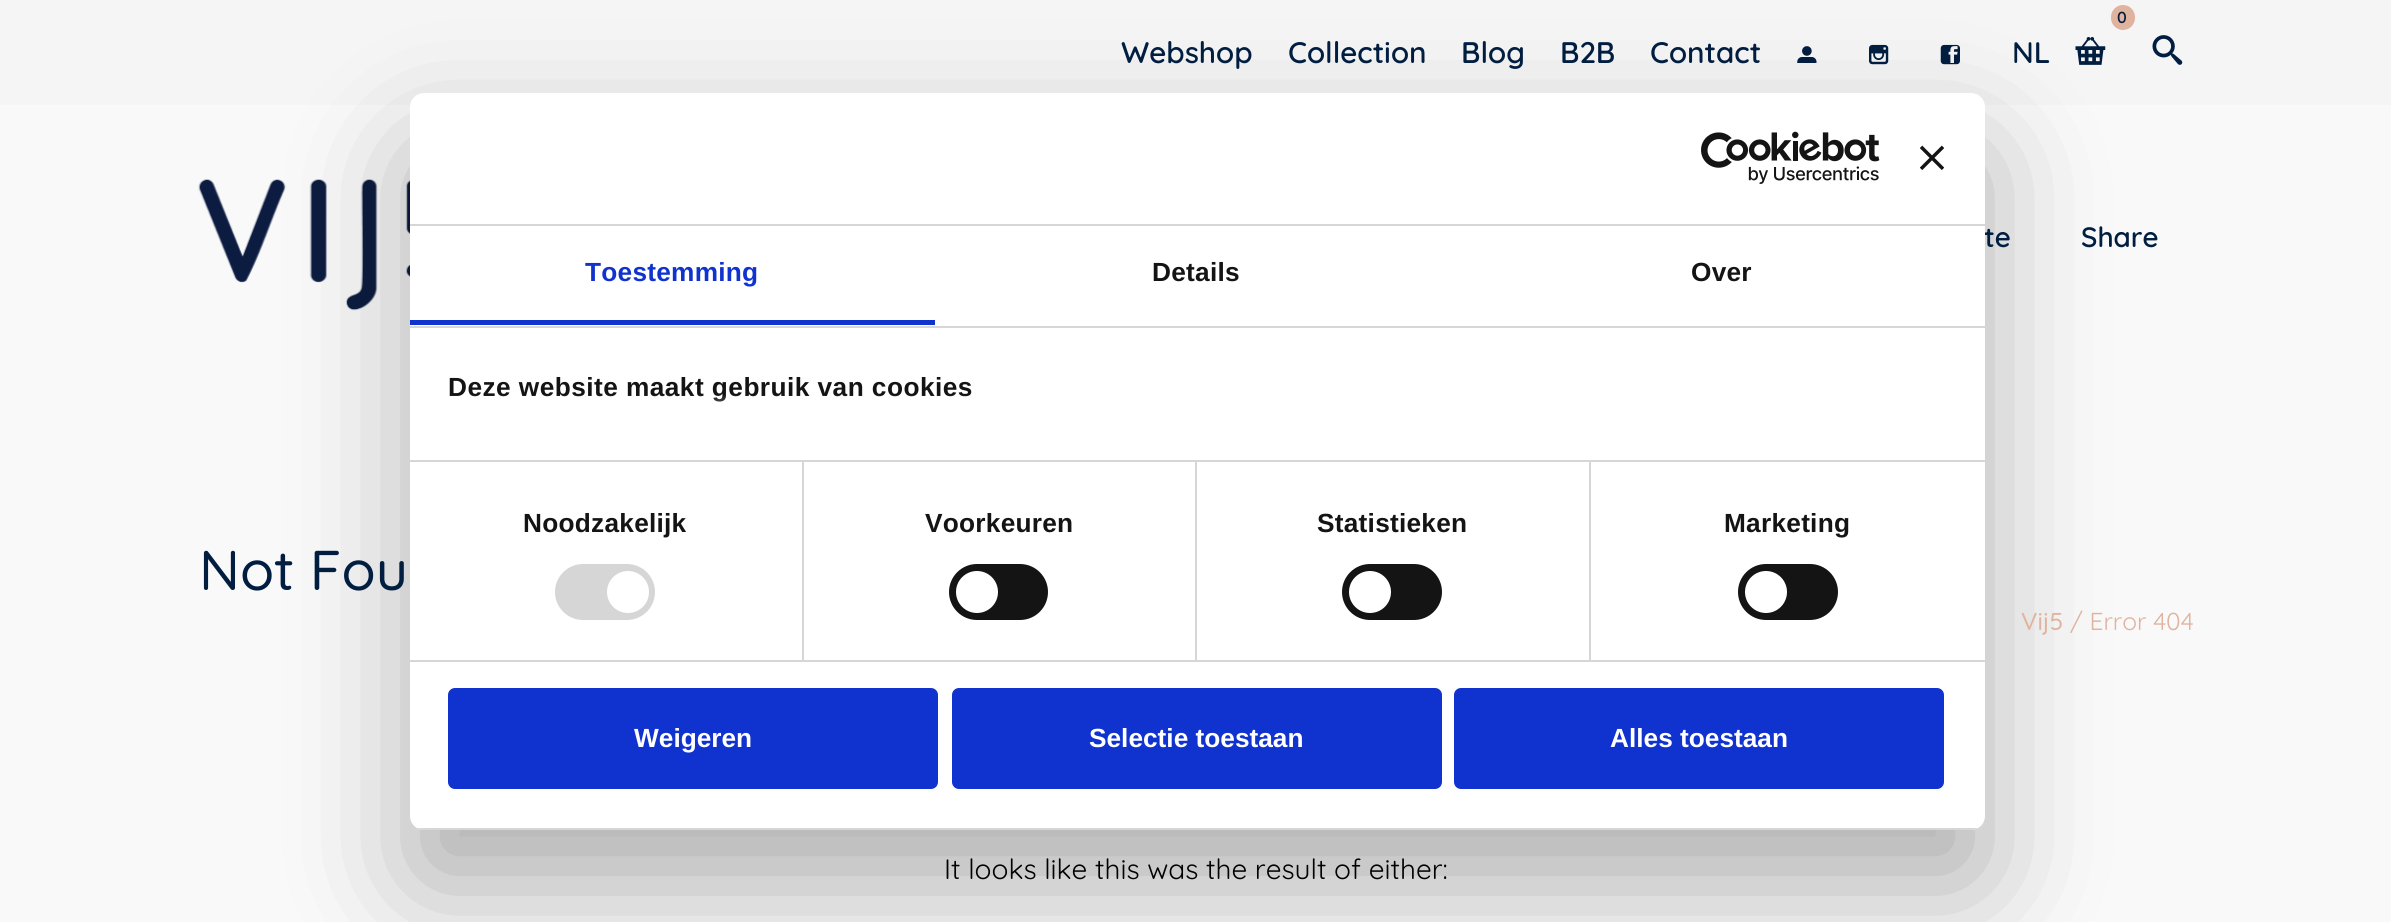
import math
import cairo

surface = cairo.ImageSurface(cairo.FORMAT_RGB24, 2391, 922)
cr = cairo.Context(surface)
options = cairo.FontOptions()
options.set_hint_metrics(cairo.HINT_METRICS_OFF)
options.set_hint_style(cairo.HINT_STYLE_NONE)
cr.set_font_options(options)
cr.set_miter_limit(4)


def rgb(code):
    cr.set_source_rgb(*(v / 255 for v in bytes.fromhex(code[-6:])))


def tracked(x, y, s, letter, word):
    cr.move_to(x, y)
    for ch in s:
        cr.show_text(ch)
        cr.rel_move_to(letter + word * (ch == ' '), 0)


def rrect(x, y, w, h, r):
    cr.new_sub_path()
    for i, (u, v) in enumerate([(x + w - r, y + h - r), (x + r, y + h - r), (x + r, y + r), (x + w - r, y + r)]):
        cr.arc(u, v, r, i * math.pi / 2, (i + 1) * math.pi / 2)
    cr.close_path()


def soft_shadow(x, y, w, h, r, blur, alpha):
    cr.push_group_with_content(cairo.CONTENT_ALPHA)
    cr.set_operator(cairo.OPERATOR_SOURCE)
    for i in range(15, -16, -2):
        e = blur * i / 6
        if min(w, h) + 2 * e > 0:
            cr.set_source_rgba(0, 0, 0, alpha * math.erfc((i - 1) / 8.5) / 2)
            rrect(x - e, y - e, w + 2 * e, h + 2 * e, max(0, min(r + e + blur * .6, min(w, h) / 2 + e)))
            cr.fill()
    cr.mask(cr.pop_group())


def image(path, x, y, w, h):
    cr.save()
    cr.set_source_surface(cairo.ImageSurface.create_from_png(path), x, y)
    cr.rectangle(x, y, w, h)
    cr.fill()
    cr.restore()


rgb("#f9f9f9")
cr.paint()
rgb("#f5f5f5")
cr.rectangle(0, 0, 2391, 105)
cr.fill()
rgb("#e0b39e")
rrect(2111, 5, 24, 25, 12)
cr.fill()
image("img/1.png", 2075, 37, 31, 28)
image("img/2.png", 1797, 46, 20, 17)
image("img/3.png", 1869, 44, 20, 21)
image("img/4.png", 1940, 44, 20, 21)
image("img/5.png", 2152, 35, 31, 30)
image("img/6.png", 198, 179, 212, 132)
rgb("#000000")
soft_shadow(410, 149, 1575, 737, 14, 59.5, 0.3)
cr.select_font_face("Quicksand SemiBold")
cr.set_font_size(16)
rgb("#011e41")
cr.move_to(2117, 23)
cr.show_text("0")
cr.set_font_size(29.75)
for x, y, s in [
    (1121, 63, "Webshop"),
    (1288, 63, "Collection"),
    (1461, 63, "Blog"),
    (1560, 63, "B2B"),
    (1650, 63, "Contact"),
    (2012, 63, "NL"),
]:
    cr.move_to(x, y)
    cr.show_text(s)
cr.set_font_size(28)
cr.move_to(1984, 247)
cr.show_text("te")
cr.move_to(2081, 247)
cr.show_text("Share")
cr.select_font_face("Quicksand Medium")
cr.set_font_size(56)
cr.move_to(199, 590)
cr.show_text("Not Fou")
cr.set_font_size(24.5)
rgb("#e0b39e")
cr.move_to(2021, 630)
cr.show_text("Vij5")
cr.select_font_face("Quicksand")
cr.move_to(2070, 630)
cr.show_text("/ Error 404")
cr.set_font_size(28)
rgb("#000000")
cr.move_to(944, 879)
cr.show_text("It looks like this was the result of either:")
rgb("#ffffff")
rrect(410, 93, 1575, 737, 14)
cr.fill()
rgb("#d6d6d6")
cr.rectangle(410, 224, 1575, 2)
cr.fill()
image("img/7.png", 1701, 131, 179, 53)
image("img/8.png", 1920, 145, 24, 25)
cr.rectangle(410, 326, 1575, 2)
cr.fill()
rgb("#1032cf")
cr.rectangle(410, 320, 525, 5)
cr.fill()
cr.select_font_face("Liberation Sans", cairo.FONT_SLANT_NORMAL, cairo.FONT_WEIGHT_BOLD)
cr.set_font_size(26.25)
tracked(585, 281, "Toestemming", 0.25, 0)
rgb("#141414")
tracked(1152, 281, "Details", 0.25, 0)
tracked(1691, 281, "Over", 0.25, 0)
rgb("#d6d6d6")
cr.rectangle(410, 460, 1575, 2)
cr.fill()
rgb("#141414")
tracked(448, 396, "Deze website maakt gebruik van cookies", 0.45, 0)
gradient = cairo.LinearGradient(1179, 461, 1179, 394)
gradient.add_color_stop_rgba(0, 1, 1, 1, 1)
gradient.add_color_stop_rgba(0.5, 1, 1, 1, 0.8)
gradient.add_color_stop_rgba(1, 1, 1, 1, 0)
cr.set_source(gradient)
cr.rectangle(450, 395, 519, 7)
cr.fill()
rgb("#d6d6d6")
cr.rectangle(410, 660, 1575, 2)
cr.fill()
cr.rectangle(802, 462, 2, 198)
cr.fill()
rgb("#141414")
tracked(523, 532, "Noodzakelijk", 0.25, 0)
rgb("#d6d6d6")
rrect(555, 564, 100, 56, 28)
cr.fill()
rgb("#ffffff")
cr.arc(628, 592, 21, 0, 2 * math.pi)
cr.fill()
rgb("#d6d6d6")
cr.rectangle(1195, 462, 2, 198)
cr.fill()
rgb("#141414")
tracked(925, 532, "Voorkeuren", 0.25, 0)
rrect(949, 564, 99, 56, 28)
cr.fill()
rgb("#ffffff")
cr.arc(977, 592, 21, 0, 2 * math.pi)
cr.fill()
rgb("#d6d6d6")
cr.rectangle(1589, 462, 2, 198)
cr.fill()
rgb("#141414")
tracked(1317, 532, "Statistieken", 0.25, 0)
rrect(1342, 564, 100, 56, 28)
cr.fill()
rgb("#ffffff")
cr.arc(1370, 592, 21, 0, 2 * math.pi)
cr.fill()
rgb("#141414")
tracked(1724, 532, "Marketing", 0.25, 0)
rrect(1738, 564, 100, 56, 28)
cr.fill()
rgb("#ffffff")
cr.arc(1766, 592, 21, 0, 2 * math.pi)
cr.fill()
cr.save()
rrect(410, 93, 1575, 737, 14)
cr.clip()
rgb("#d6d6d6")
cr.rectangle(410, 828, 1575, 2)
cr.fill()
cr.restore()
rgb("#1032cf")
rrect(450, 690, 486, 97, 5)
cr.fill_preserve()
cr.set_line_width(4)
cr.stroke()
rgb("#ffffff")
cr.move_to(634, 747)
cr.show_text("Weigeren")
rgb("#1032cf")
rrect(954, 690, 486, 97, 5)
cr.fill_preserve()
cr.stroke()
rgb("#ffffff")
cr.move_to(1089, 747)
cr.show_text("Selectie toestaan")
rgb("#1032cf")
rrect(1456, 690, 486, 97, 5)
cr.fill_preserve()
cr.stroke()
rgb("#ffffff")
cr.move_to(1610, 747)
cr.show_text("Alles toestaan")
surface.write_to_png("page.png")
